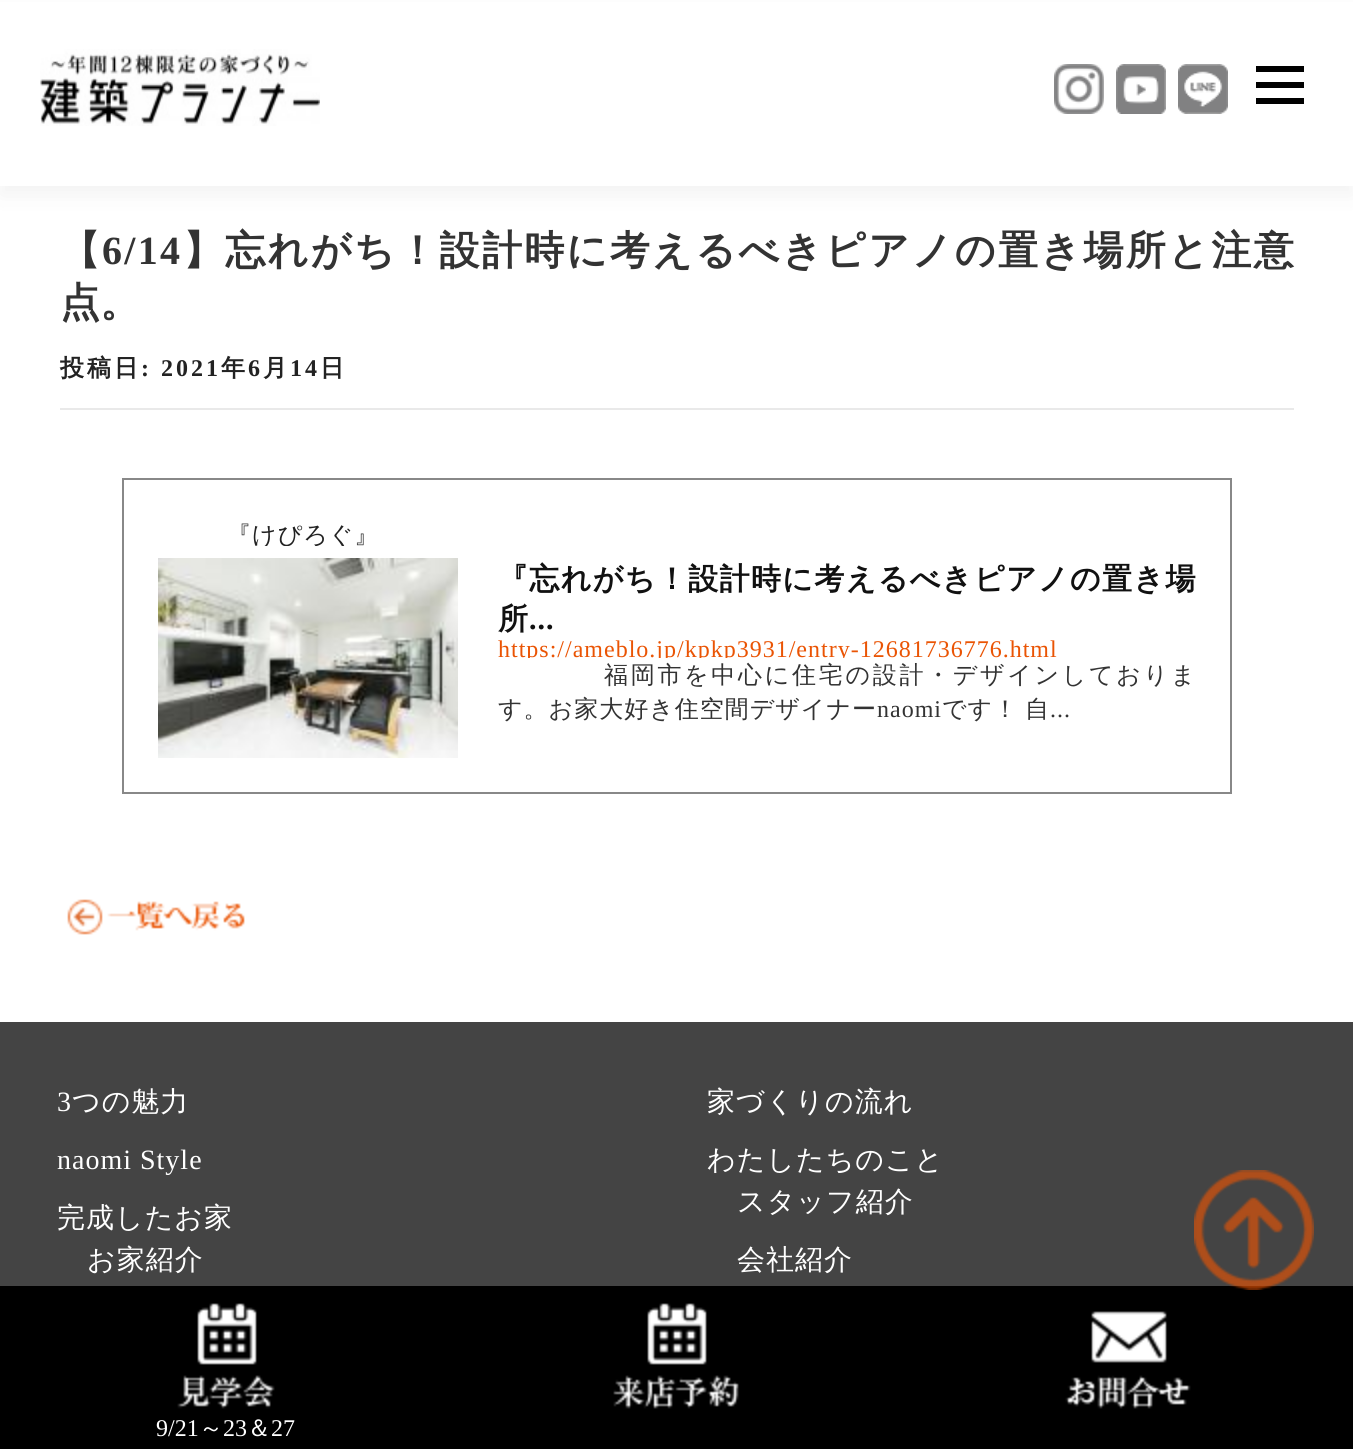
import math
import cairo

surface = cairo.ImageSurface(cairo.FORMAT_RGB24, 1353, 1449)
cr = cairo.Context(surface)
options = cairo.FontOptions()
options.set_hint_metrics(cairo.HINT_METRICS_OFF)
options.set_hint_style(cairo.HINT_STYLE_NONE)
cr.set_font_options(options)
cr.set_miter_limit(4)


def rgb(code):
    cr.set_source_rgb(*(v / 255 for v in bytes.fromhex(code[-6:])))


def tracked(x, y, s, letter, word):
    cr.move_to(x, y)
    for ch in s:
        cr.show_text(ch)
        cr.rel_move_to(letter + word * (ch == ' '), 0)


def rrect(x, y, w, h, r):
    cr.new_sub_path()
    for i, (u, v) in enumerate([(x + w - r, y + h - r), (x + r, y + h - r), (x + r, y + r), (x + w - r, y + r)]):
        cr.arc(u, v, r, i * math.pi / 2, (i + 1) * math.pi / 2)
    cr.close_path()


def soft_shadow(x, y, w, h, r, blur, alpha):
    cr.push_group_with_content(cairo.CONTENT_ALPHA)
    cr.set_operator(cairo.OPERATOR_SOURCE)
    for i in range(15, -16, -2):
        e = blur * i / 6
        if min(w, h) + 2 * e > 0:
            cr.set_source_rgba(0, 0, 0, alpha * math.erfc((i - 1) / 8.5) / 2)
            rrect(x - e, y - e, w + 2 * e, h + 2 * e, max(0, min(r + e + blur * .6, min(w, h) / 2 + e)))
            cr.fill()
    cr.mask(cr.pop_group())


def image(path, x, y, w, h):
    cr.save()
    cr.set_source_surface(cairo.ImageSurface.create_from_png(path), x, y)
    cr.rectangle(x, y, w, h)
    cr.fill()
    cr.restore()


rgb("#ffffff")
cr.paint()
rgb("#323232")
soft_shadow(0, 10, 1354, 186, 0, 10, 0.06)
rgb("#ffffff")
cr.rectangle(0, 2, 1353, 184)
cr.fill()
image("img/1.png", 40, 49, 280, 77)
image("img/2.png", 1054, 64, 50, 50)
image("img/3.png", 1116, 64, 50, 50)
image("img/4.png", 1178, 64, 50, 50)
for x, y, w, h, color in [
    (1256, 82, 48, 6, "#000000"),
    (1256, 66, 48, 6, "#000000"),
    (1256, 98, 48, 6, "#000000"),
    (60, 408, 1234, 2, "#e9e9e9"),
]:
    rgb(color)
    cr.rectangle(x, y, w, h)
    cr.fill()
cr.rectangle(123, 479, 1108, 314)
rgb("#888888")
cr.stroke()
image("img/5.png", 158, 558, 300, 200)
image("img/6.png", 67, 899, 178, 36)
rgb("#444444")
cr.rectangle(0, 1022, 1353, 264)
cr.fill()
rgb("#000000")
cr.rectangle(0, 1286, 1353, 163)
cr.fill()
image("img/7.png", 613, 1303, 126, 106)
image("img/8.png", 1065, 1311, 126, 98)
image("img/9.png", 177, 1303, 98, 106)
image("img/10.png", 1194, 1170, 120, 120)
cr.select_font_face("WenQuanYi Zen Hei", cairo.FONT_SLANT_NORMAL, cairo.FONT_WEIGHT_BOLD)
cr.set_font_size(40)
rgb("#333333")
tracked(60, 264, "【", 2.3, 0)
cr.select_font_face("Liberation Serif", cairo.FONT_SLANT_NORMAL, cairo.FONT_WEIGHT_BOLD)
tracked(102, 264, "6/14", 2.3, 0)
cr.select_font_face("WenQuanYi Zen Hei", cairo.FONT_SLANT_NORMAL, cairo.FONT_WEIGHT_BOLD)
tracked(183, 264, "】忘れがち！設計時に考えるべきピアノの置き場所と注意", 2.3, 0)
cr.move_to(60, 316)
cr.show_text("点。")
cr.set_font_size(24)
rgb("#222222")
tracked(60, 376, "投稿日", 3, 0)
cr.select_font_face("Liberation Serif", cairo.FONT_SLANT_NORMAL, cairo.FONT_WEIGHT_BOLD)
tracked(141, 376, ": 2021", 3, 0)
cr.select_font_face("WenQuanYi Zen Hei", cairo.FONT_SLANT_NORMAL, cairo.FONT_WEIGHT_BOLD)
tracked(221, 376, "年", 3, 0)
cr.select_font_face("Liberation Serif", cairo.FONT_SLANT_NORMAL, cairo.FONT_WEIGHT_BOLD)
tracked(248, 376, "6", 3, 0)
cr.select_font_face("WenQuanYi Zen Hei", cairo.FONT_SLANT_NORMAL, cairo.FONT_WEIGHT_BOLD)
tracked(263, 376, "月", 3, 0)
cr.select_font_face("Liberation Serif", cairo.FONT_SLANT_NORMAL, cairo.FONT_WEIGHT_BOLD)
tracked(290, 376, "14", 3, 0)
cr.select_font_face("WenQuanYi Zen Hei", cairo.FONT_SLANT_NORMAL, cairo.FONT_WEIGHT_BOLD)
tracked(320, 376, "日", 3, 0)
cr.save()
cr.rectangle(158, 514, 1038, 32)
cr.clip()
cr.select_font_face("WenQuanYi Zen Hei Medium")
tracked(227, 543, "『けぴろぐ』", 1, 0)
cr.restore()
cr.set_font_size(30)
rgb("#111111")
tracked(498, 589, "『忘れがち！設計時に考えるべきピアノの置き場", 1.35, 0)
tracked(498, 629, "所", 1, 0)
cr.select_font_face("Liberation Serif", cairo.FONT_SLANT_NORMAL, cairo.FONT_WEIGHT_BOLD)
tracked(529, 629, "...", 1, 0)
cr.save()
cr.rectangle(498, 638, 698, 20)
cr.clip()
cr.select_font_face("Liberation Serif")
cr.set_font_size(24)
rgb("#ea5404")
tracked(498, 657, "https://ameblo.jp/kpkp3931/entry-12681736776.html", 1, 0)
cr.restore()
cr.select_font_face("WenQuanYi Zen Hei Medium")
cr.set_font_size(24)
rgb("#333333")
tracked(604, 683, "福岡市を中心に住宅の設計・デザインしておりま", 2.7, 0)
tracked(498, 717, "す。お家大好き住空間デザイナー", 1, 0)
cr.select_font_face("Liberation Serif")
tracked(877, 717, "naomi", 1, 0)
cr.select_font_face("WenQuanYi Zen Hei Medium")
tracked(942, 717, "です！", 1, 0)
tracked(1025, 717, "自", 1, 0)
cr.select_font_face("Liberation Serif")
tracked(1050, 717, "...", 1, 0)
cr.set_font_size(28)
rgb("#ffffff")
tracked(57, 1111, "3", 1, 0)
cr.select_font_face("WenQuanYi Zen Hei Medium")
tracked(72, 1111, "つの魅力", 1, 0)
cr.select_font_face("Liberation Serif")
tracked(57, 1169, "naomi Style", 1, 0)
cr.select_font_face("WenQuanYi Zen Hei Medium")
for x, y, s in [
    (57, 1227, "完成したお家"),
    (87, 1269, "お家紹介"),
    (707, 1111, "家づくりの流れ"),
    (707, 1169, "わたしたちのこと"),
    (737, 1211, "スタッフ紹介"),
    (737, 1269, "会社紹介"),
]:
    tracked(x, y, s, 1, 0)
cr.select_font_face("Liberation Serif")
cr.set_font_size(24)
cr.move_to(156, 1436)
cr.show_text("9/21")
cr.select_font_face("WenQuanYi Zen Hei Medium")
cr.move_to(199, 1436)
cr.show_text("～")
cr.select_font_face("Liberation Serif")
cr.move_to(223, 1436)
cr.show_text("23")
cr.select_font_face("WenQuanYi Zen Hei Medium")
cr.move_to(247, 1436)
cr.show_text("＆")
cr.select_font_face("Liberation Serif")
cr.move_to(271, 1436)
cr.show_text("27")
surface.write_to_png("page.png")
